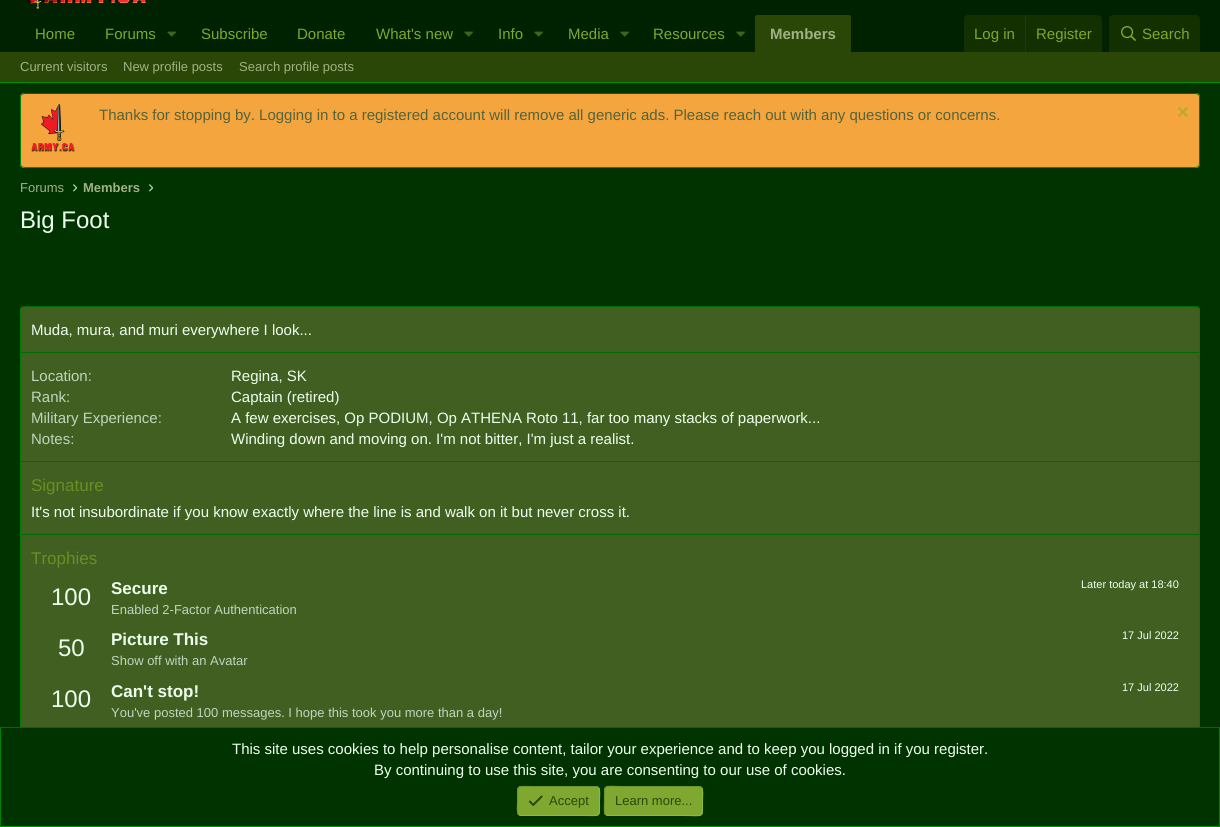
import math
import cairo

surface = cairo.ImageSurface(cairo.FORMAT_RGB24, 1220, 827)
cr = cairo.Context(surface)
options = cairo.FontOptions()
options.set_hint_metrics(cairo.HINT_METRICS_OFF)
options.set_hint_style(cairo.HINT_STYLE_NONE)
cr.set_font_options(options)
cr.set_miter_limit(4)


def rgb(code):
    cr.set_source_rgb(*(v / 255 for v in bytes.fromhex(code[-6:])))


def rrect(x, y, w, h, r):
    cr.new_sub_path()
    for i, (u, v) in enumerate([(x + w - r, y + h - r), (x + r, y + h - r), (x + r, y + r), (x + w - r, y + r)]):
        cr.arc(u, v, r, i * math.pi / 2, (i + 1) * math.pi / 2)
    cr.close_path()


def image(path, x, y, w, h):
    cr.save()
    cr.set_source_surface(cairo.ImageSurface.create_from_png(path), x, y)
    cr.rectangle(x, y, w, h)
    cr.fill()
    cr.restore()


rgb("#003300")
cr.paint()
rgb("#002200")
cr.rectangle(0, 0, 1220, 52)
cr.fill()
image("img/1.png", 27, 0, 119, 9)
image("img/2.png", 167, 31, 9, 6)
image("img/2.png", 464, 31, 9, 6)
image("img/2.png", 534, 31, 9, 6)
image("img/2.png", 620, 31, 9, 6)
image("img/2.png", 736, 31, 9, 6)
rgb("#2a4708")
cr.new_path()
cr.move_to(757, 15)
cr.line_to(849, 15)
cr.curve_to(850, 15, 851, 16, 851, 17)
cr.line_to(851, 52)
cr.line_to(755, 52)
cr.line_to(755, 17)
cr.curve_to(755, 16, 756, 15, 757, 15)
cr.close_path()
cr.fill()
rgb("#133000")
cr.new_path()
cr.move_to(968, 15)
cr.line_to(1098, 15)
cr.curve_to(1100, 15, 1102, 17, 1102, 19)
cr.line_to(1102, 52)
cr.line_to(964, 52)
cr.line_to(964, 19)
cr.curve_to(964, 17, 966, 15, 968, 15)
cr.close_path()
cr.fill()
rgb("#233c00")
cr.rectangle(1025, 15, 1, 37)
cr.fill()
rgb("#133000")
cr.new_path()
cr.move_to(1113, 15)
cr.line_to(1196, 15)
cr.curve_to(1198, 15, 1200, 17, 1200, 19)
cr.line_to(1200, 52)
cr.line_to(1109, 52)
cr.line_to(1109, 19)
cr.curve_to(1109, 17, 1111, 15, 1113, 15)
cr.close_path()
cr.fill()
image("img/3.png", 1121, 26, 15, 15)
rgb("#2a4708")
cr.rectangle(0, 52, 1220, 30)
cr.fill()
rgb("#009400")
cr.rectangle(0, 82, 1220, 1)
cr.fill()
rgb("#f5a53d")
rrect(20, 93, 1180, 75, 4)
cr.fill()
cr.new_path()
cr.move_to(21.5, 94.5)
cr.line_to(24, 93.5)
cr.line_to(1196, 93.5)
cr.line_to(1198.5, 94.5)
rgb("#006b00")
cr.set_line_width(1)
cr.stroke()
cr.new_path()
cr.move_to(1198.5, 94.5)
cr.line_to(1199.5, 96.5)
cr.line_to(1199.5, 164.5)
cr.line_to(1198.5, 166.5)
rgb("#008000")
cr.stroke()
cr.new_path()
cr.move_to(1198.5, 166.5)
cr.line_to(1196, 167.5)
cr.line_to(24, 167.5)
cr.line_to(21.5, 166.5)
rgb("#009400")
cr.stroke()
cr.new_path()
cr.move_to(21.5, 166.5)
cr.line_to(20.5, 164.5)
cr.line_to(20.5, 96.5)
cr.line_to(21.5, 94.5)
rgb("#008000")
cr.stroke()
image("img/4.png", 31, 104, 44, 48)
image("img/5.png", 1178, 107, 10, 10)
image("img/6.png", 73, 184, 4, 8)
image("img/6.png", 149, 184, 4, 8)
rgb("#415f21")
rrect(20, 306, 1180, 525, 4)
cr.fill()
cr.new_path()
cr.move_to(21.5, 307.5)
cr.line_to(24, 306.5)
cr.line_to(1196, 306.5)
cr.line_to(1198.5, 307.5)
rgb("#006b00")
cr.stroke()
cr.new_path()
cr.move_to(1198.5, 307.5)
cr.line_to(1199.5, 310)
cr.line_to(1199.5, 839)
cr.line_to(1198.5, 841.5)
rgb("#008000")
cr.stroke()
cr.new_path()
cr.move_to(21.5, 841.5)
cr.line_to(20.5, 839)
cr.line_to(20.5, 310)
cr.line_to(21.5, 307.5)
cr.stroke()
for x, y, w, h, color in [
    (21, 352, 1178, 1, "#006b00"),
    (21, 461, 1178, 1, "#006b00"),
    (21, 534, 1178, 1, "#006b00"),
    (20, 728, 1180, 98, "#003300"),
    (0, 727, 1220, 1, "#006b00"),
    (1219, 727, 1, 100, "#008000"),
    (0, 826, 1220, 1, "#009400"),
    (0, 727, 1, 100, "#008000"),
]:
    rgb(color)
    cr.rectangle(x, y, w, h)
    cr.fill()
rgb("#7ea830")
rrect(517, 786, 83, 30, 4)
cr.fill()
cr.new_path()
cr.move_to(598.5, 787.5)
cr.curve_to(600.5, 789.5, 599.5, 798, 599.5, 801)
cr.curve_to(599.5, 818, 601.5, 815.5, 583.5, 815.5)
cr.line_to(521, 815.5)
cr.line_to(518.5, 814.5)
rgb("#8dbc36")
cr.stroke()
cr.new_path()
cr.move_to(518.5, 814.5)
cr.curve_to(516.5, 812.5, 517.5, 804, 517.5, 801)
cr.curve_to(517.5, 784, 515.5, 786.5, 533.5, 786.5)
cr.line_to(596, 786.5)
cr.line_to(598.5, 787.5)
rgb("#6f942a")
cr.stroke()
image("img/7.png", 528, 795, 15, 11)
rgb("#7ea830")
rrect(604, 786, 99, 30, 4)
cr.fill()
cr.new_path()
cr.move_to(701.5, 787.5)
cr.curve_to(703.5, 789.5, 702.5, 798, 702.5, 801)
cr.curve_to(702.5, 819, 704.5, 815.5, 684, 815.5)
cr.line_to(608, 815.5)
cr.line_to(605.5, 814.5)
rgb("#8dbc36")
cr.stroke()
cr.new_path()
cr.move_to(605.5, 814.5)
cr.curve_to(603.5, 812.5, 604.5, 804, 604.5, 801)
cr.curve_to(604.5, 783, 602.5, 786.5, 623, 786.5)
cr.line_to(699, 786.5)
cr.line_to(701.5, 787.5)
rgb("#6f942a")
cr.stroke()
cr.select_font_face("Liberation Sans")
cr.set_font_size(15)
rgb("#7ea830")
for x, y, s in [
    (35, 39, "Home"),
    (105, 39, "Forums"),
    (201, 39, "Subscribe"),
    (297, 39, "Donate"),
    (376, 39, "What's new"),
    (498, 39, "Info"),
    (568, 39, "Media"),
    (653, 39, "Resources"),
]:
    cr.move_to(x, y)
    cr.show_text(s)
cr.select_font_face("Liberation Sans", cairo.FONT_SLANT_NORMAL, cairo.FONT_WEIGHT_BOLD)
rgb("#a0b184")
cr.move_to(770, 39)
cr.show_text("Members")
cr.select_font_face("Liberation Sans")
rgb("#7ea830")
for x, y, s in [
    (974, 39, "Log in"),
    (1036, 39, "Register"),
    (1142, 39, "Search"),
]:
    cr.move_to(x, y)
    cr.show_text(s)
cr.set_font_size(13)
rgb("#a0b184")
for x, y, s in [
    (20, 71, "Current visitors"),
    (123, 71, "New profile posts"),
    (239, 71, "Search profile posts"),
]:
    cr.move_to(x, y)
    cr.show_text(s)
cr.set_font_size(15)
rgb("#53633b")
cr.move_to(99, 120)
cr.show_text("Thanks for stopping by. Logging in to a registered account will remove all generic ads. Please reach out with any questions or concerns.")
cr.set_font_size(13)
rgb("#a0b184")
cr.move_to(20, 192)
cr.show_text("Forums")
cr.select_font_face("Liberation Sans", cairo.FONT_SLANT_NORMAL, cairo.FONT_WEIGHT_BOLD)
cr.move_to(83, 192)
cr.show_text("Members")
cr.select_font_face("Liberation Sans")
cr.set_font_size(24)
rgb("#eeffee")
cr.move_to(20, 228)
cr.show_text("Big Foot")
cr.set_font_size(15)
cr.move_to(31, 335)
cr.show_text("Muda, mura, and muri everywhere I look...")
rgb("#bed6be")
cr.move_to(31, 381)
cr.show_text("Location:")
rgb("#eeffee")
cr.move_to(231, 381)
cr.show_text("Regina, SK")
rgb("#bed6be")
cr.move_to(31, 402)
cr.show_text("Rank:")
rgb("#eeffee")
cr.move_to(231, 402)
cr.show_text("Captain (retired)")
rgb("#bed6be")
cr.move_to(31, 423)
cr.show_text("Military Experience:")
rgb("#eeffee")
cr.move_to(231, 423)
cr.show_text("A few exercises, Op PODIUM, Op ATHENA Roto 11, far too many stacks of paperwork...")
rgb("#bed6be")
cr.move_to(31, 444)
cr.show_text("Notes:")
rgb("#eeffee")
cr.move_to(231, 444)
cr.show_text("Winding down and moving on. I'm not bitter, I'm just a realist.")
cr.set_font_size(17)
rgb("#6b8e23")
cr.move_to(31, 491)
cr.show_text("Signature")
cr.set_font_size(15)
rgb("#eeffee")
cr.move_to(31, 517)
cr.show_text("It's not insubordinate if you know exactly where the line is and walk on it but never cross it.")
cr.set_font_size(17)
rgb("#6b8e23")
cr.move_to(31, 564)
cr.show_text("Trophies")
cr.set_font_size(24)
rgb("#eeffee")
cr.move_to(51, 605)
cr.show_text("100")
cr.select_font_face("Liberation Sans", cairo.FONT_SLANT_NORMAL, cairo.FONT_WEIGHT_BOLD)
cr.set_font_size(17)
cr.move_to(111, 594)
cr.show_text("Secure")
cr.select_font_face("Liberation Sans")
cr.set_font_size(11)
cr.move_to(1081, 588)
cr.show_text("Later today at 18:40")
cr.set_font_size(13)
rgb("#bed6be")
cr.move_to(111, 614)
cr.show_text("Enabled 2-Factor Authentication")
cr.set_font_size(24)
rgb("#eeffee")
cr.move_to(58, 656)
cr.show_text("50")
cr.select_font_face("Liberation Sans", cairo.FONT_SLANT_NORMAL, cairo.FONT_WEIGHT_BOLD)
cr.set_font_size(17)
cr.move_to(111, 645)
cr.show_text("Picture This")
cr.select_font_face("Liberation Sans")
cr.set_font_size(11)
cr.move_to(1122, 639)
cr.show_text("17 Jul 2022")
cr.set_font_size(13)
rgb("#bed6be")
cr.move_to(111, 665)
cr.show_text("Show off with an Avatar")
cr.set_font_size(24)
rgb("#eeffee")
cr.move_to(51, 707)
cr.show_text("100")
cr.select_font_face("Liberation Sans", cairo.FONT_SLANT_NORMAL, cairo.FONT_WEIGHT_BOLD)
cr.set_font_size(17)
cr.move_to(111, 697)
cr.show_text("Can't stop!")
cr.select_font_face("Liberation Sans")
cr.set_font_size(11)
cr.move_to(1122, 691)
cr.show_text("17 Jul 2022")
cr.set_font_size(13)
rgb("#bed6be")
cr.move_to(111, 717)
cr.show_text("You've posted 100 messages. I hope this took you more than a day!")
cr.set_font_size(15)
rgb("#eeffee")
cr.move_to(232, 754)
cr.show_text("This site uses cookies to help personalise content, tailor your experience and to keep you logged in if you register.")
cr.move_to(374, 775)
cr.show_text("By continuing to use this site, you are consenting to our use of cookies.")
cr.set_font_size(13)
rgb("#2a4708")
cr.move_to(549, 805)
cr.show_text("Accept")
cr.move_to(615, 805)
cr.show_text("Learn more...")
surface.write_to_png("page.png")
